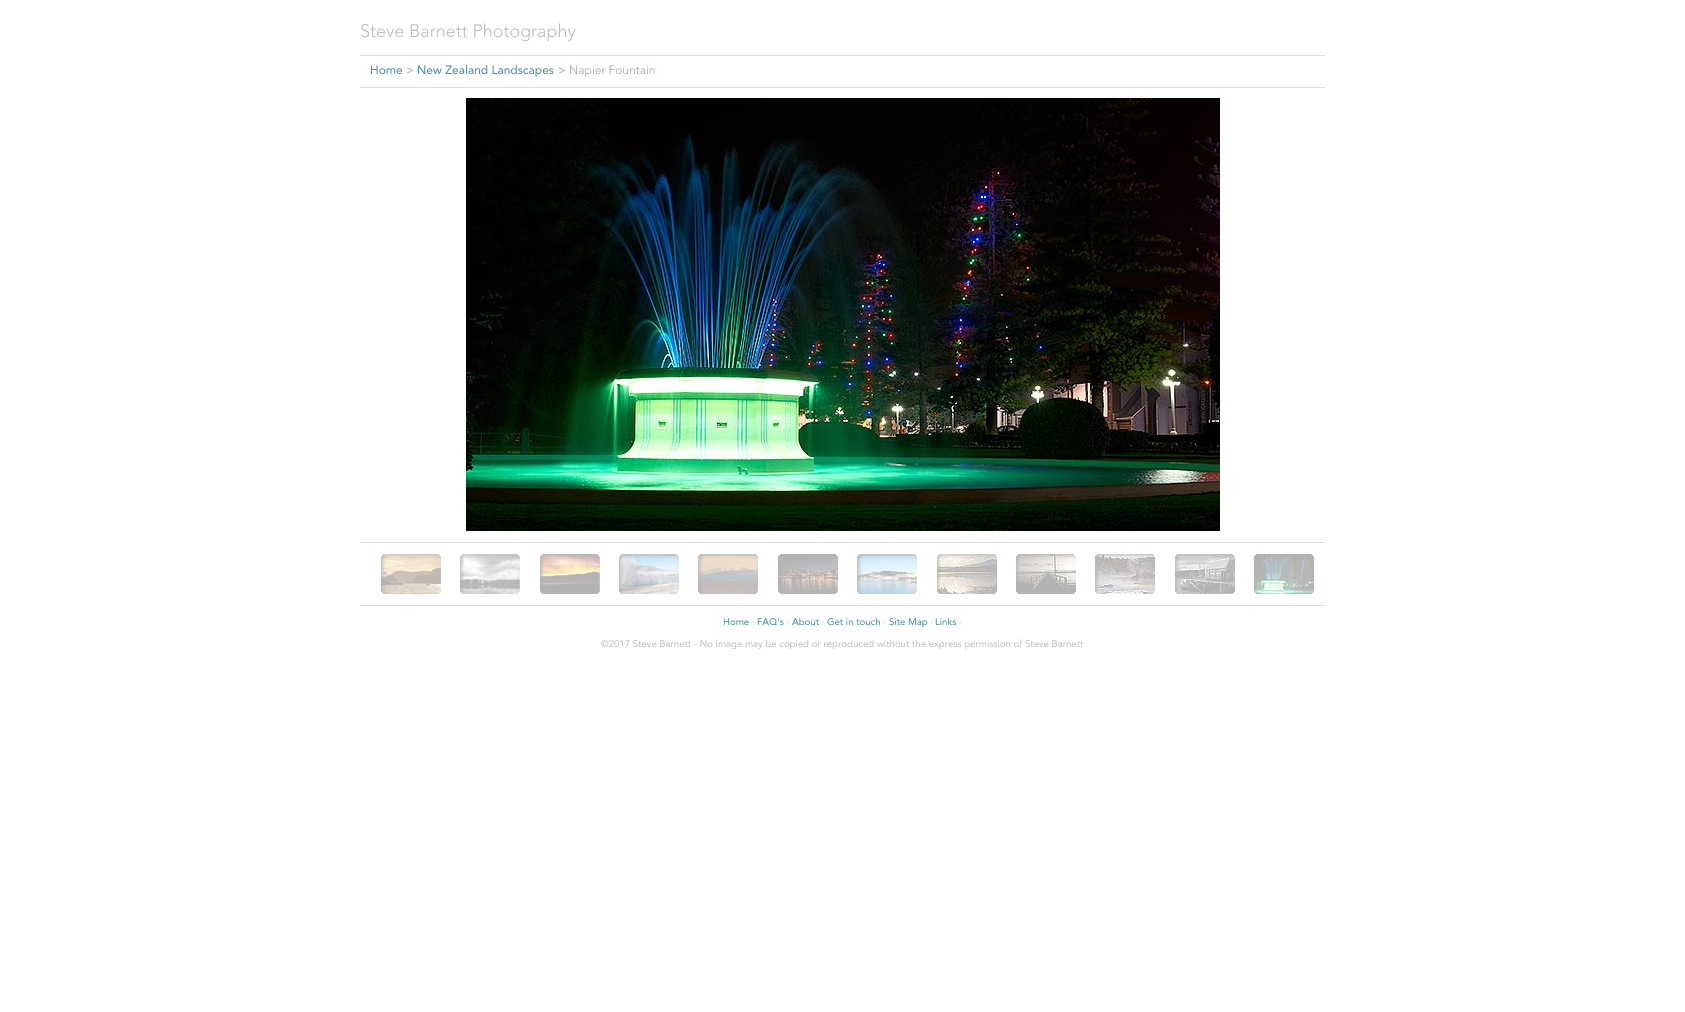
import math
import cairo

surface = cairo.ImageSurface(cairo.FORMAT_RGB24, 1685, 1012)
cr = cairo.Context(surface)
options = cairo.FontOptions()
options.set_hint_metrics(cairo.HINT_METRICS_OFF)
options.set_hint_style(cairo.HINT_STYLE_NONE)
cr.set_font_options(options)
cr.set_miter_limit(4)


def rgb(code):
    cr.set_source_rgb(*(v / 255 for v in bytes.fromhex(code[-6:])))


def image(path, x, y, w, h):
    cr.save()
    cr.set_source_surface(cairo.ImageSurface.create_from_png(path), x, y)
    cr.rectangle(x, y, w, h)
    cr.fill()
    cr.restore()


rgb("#ffffff")
cr.paint()
rgb("#dddddd")
cr.rectangle(360, 55, 965, 1)
cr.fill()
cr.rectangle(360, 87, 965, 1)
cr.fill()
image("img/1.png", 466, 98, 754, 433)
cr.rectangle(360, 542, 965, 1)
cr.fill()
image("img/2.png", 381, 554, 60, 40)
image("img/3.png", 460, 554, 60, 40)
image("img/4.png", 540, 554, 60, 40)
image("img/5.png", 619, 554, 60, 40)
image("img/6.png", 698, 554, 60, 40)
image("img/7.png", 778, 554, 60, 40)
image("img/8.png", 857, 554, 60, 40)
image("img/9.png", 937, 554, 60, 40)
image("img/10.png", 1016, 554, 60, 40)
image("img/11.png", 1095, 554, 60, 40)
image("img/12.png", 1175, 554, 60, 40)
image("img/13.png", 1254, 554, 60, 40)
cr.rectangle(360, 605, 965, 1)
cr.fill()
cr.select_font_face("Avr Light")
cr.set_font_size(18)
rgb("#bbbbbb")
cr.move_to(360, 37)
cr.show_text("Steve Barnett Photography")
cr.select_font_face("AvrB", cairo.FONT_SLANT_NORMAL, cairo.FONT_WEIGHT_BOLD)
cr.set_font_size(12)
rgb("#448899")
cr.move_to(370, 74)
cr.show_text("Home")
rgb("#88aaaa")
cr.move_to(406, 74)
cr.show_text(">")
rgb("#448899")
cr.move_to(417, 74)
cr.show_text("New Zealand Landscapes")
rgb("#88aaaa")
cr.move_to(558, 74)
cr.show_text(">")
cr.select_font_face("Avr Light")
cr.move_to(569, 74)
cr.show_text("Napier Fountain")
cr.select_font_face("AvrB", cairo.FONT_SLANT_NORMAL, cairo.FONT_WEIGHT_BOLD)
cr.set_font_size(9.6)
rgb("#448899")
cr.move_to(723, 625)
cr.show_text("Home")
rgb("#bbbbbb")
cr.move_to(752, 625)
cr.show_text("·")
rgb("#448899")
cr.move_to(757, 625)
cr.show_text("FAQ's")
rgb("#bbbbbb")
cr.move_to(787, 625)
cr.show_text("·")
rgb("#448899")
cr.move_to(792, 625)
cr.show_text("About")
rgb("#bbbbbb")
cr.move_to(822, 625)
cr.show_text("·")
rgb("#448899")
cr.move_to(827, 625)
cr.show_text("Get in touch")
rgb("#bbbbbb")
cr.move_to(883, 625)
cr.show_text("·")
rgb("#448899")
cr.move_to(889, 625)
cr.show_text("Site Map")
rgb("#bbbbbb")
cr.move_to(930, 625)
cr.show_text("·")
rgb("#448899")
cr.move_to(935, 625)
cr.show_text("Links")
rgb("#bbbbbb")
cr.move_to(959, 625)
cr.show_text("·")
cr.move_to(601, 647)
cr.show_text("©2017 Steve Barnett - No image may be copied or reproduced without the express permission of Steve Barnett")
surface.write_to_png("page.png")
